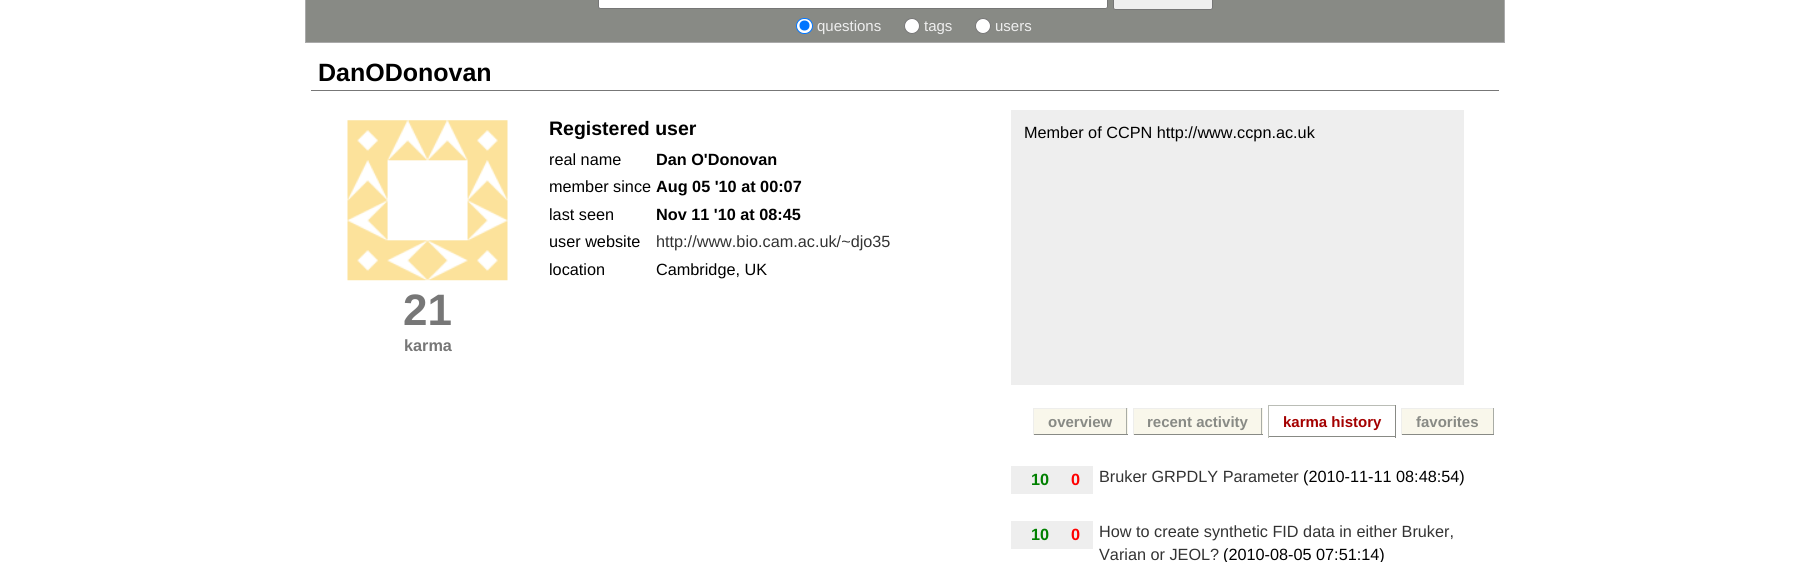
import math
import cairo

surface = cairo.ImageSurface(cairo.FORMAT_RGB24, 1810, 562)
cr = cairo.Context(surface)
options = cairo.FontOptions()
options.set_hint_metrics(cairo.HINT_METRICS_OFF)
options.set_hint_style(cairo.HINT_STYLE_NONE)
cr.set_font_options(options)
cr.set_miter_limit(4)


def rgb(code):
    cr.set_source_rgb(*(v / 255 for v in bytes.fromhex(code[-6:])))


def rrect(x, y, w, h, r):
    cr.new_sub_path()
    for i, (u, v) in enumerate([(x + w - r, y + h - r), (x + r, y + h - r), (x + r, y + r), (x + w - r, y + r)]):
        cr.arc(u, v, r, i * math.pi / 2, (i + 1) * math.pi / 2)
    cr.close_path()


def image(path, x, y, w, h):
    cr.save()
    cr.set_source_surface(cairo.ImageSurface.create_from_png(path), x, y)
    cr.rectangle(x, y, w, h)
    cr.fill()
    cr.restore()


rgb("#ffffff")
cr.paint()
rgb("#888a85")
cr.rectangle(305.5, -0.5, 1199, 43)
cr.fill_preserve()
rgb("#aaaaaa")
cr.set_line_width(1)
cr.stroke()
rgb("#ffffff")
rrect(598.5, -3.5, 509, 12, 2)
cr.fill_preserve()
rgb("#767676")
cr.stroke()
rgb("#efefef")
rrect(1113.5, -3.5, 99, 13, 2)
cr.fill_preserve()
rgb("#767676")
cr.stroke()
rgb("#ffffff")
rrect(796.5, 18.5, 16, 15, 7.5)
cr.fill_preserve()
rgb("#0075ff")
cr.stroke()
cr.arc(804.5, 25.5, 5, 0, 2 * math.pi)
cr.fill()
rgb("#ffffff")
cr.arc(912, 26, 7.5, 0, 2 * math.pi)
cr.fill_preserve()
rgb("#767676")
cr.stroke()
rgb("#ffffff")
cr.arc(983, 26, 7.5, 0, 2 * math.pi)
cr.fill_preserve()
rgb("#767676")
cr.stroke()
rgb("#777777")
cr.rectangle(311, 90, 1188, 1)
cr.fill()
rgb("#eeeeee")
cr.rectangle(1011, 110, 453, 275)
cr.fill()
image("img/1.png", 347, 120, 161, 161)
for x, y, w, h, color in [
    (1034, 409, 94, 25, "#f9f7eb"),
    (1033, 408, 95, 1, "#eeeeec"),
    (1126, 408, 1, 27, "#a9aca5"),
    (1033, 434, 95, 1, "#888a85"),
    (1033, 408, 1, 27, "#eeeeec"),
    (1134, 409, 129, 25, "#f9f7eb"),
    (1133, 408, 130, 1, "#eeeeec"),
    (1261, 408, 1, 27, "#a9aca5"),
    (1133, 434, 130, 1, "#888a85"),
    (1133, 408, 1, 27, "#eeeeec"),
    (1268, 405, 128, 1, "#babdb6"),
    (1395, 405, 1, 33, "#888a85"),
    (1268, 436, 128, 1, "#888a85"),
    (1268, 405, 1, 33, "#babdb6"),
    (1402, 409, 91, 25, "#f9f7eb"),
    (1401, 408, 93, 1, "#eeeeec"),
    (1493, 408, 1, 27, "#a9aca5"),
    (1401, 434, 93, 1, "#888a85"),
    (1401, 408, 1, 27, "#eeeeec"),
    (1011, 466, 82, 28, "#eeeeee"),
    (1011, 521, 82, 28, "#eeeeee"),
]:
    rgb(color)
    cr.rectangle(x, y, w, h)
    cr.fill()
cr.select_font_face("Liberation Sans")
cr.set_font_size(15)
for x, y, s in [
    (817, 31, "questions"),
    (924, 31, "tags"),
    (995, 31, "users"),
]:
    cr.move_to(x, y)
    cr.show_text(s)
cr.select_font_face("Liberation Sans", cairo.FONT_SLANT_NORMAL, cairo.FONT_WEIGHT_BOLD)
cr.set_font_size(25)
rgb("#000000")
cr.move_to(318, 81)
cr.show_text("DanODonovan")
cr.set_font_size(19.5)
cr.move_to(549, 135)
cr.show_text("Registered user")
cr.select_font_face("Liberation Sans")
cr.set_font_size(16.25)
cr.move_to(549, 165)
cr.show_text("real name")
cr.select_font_face("Liberation Sans", cairo.FONT_SLANT_NORMAL, cairo.FONT_WEIGHT_BOLD)
cr.move_to(656, 165)
cr.show_text("Dan O'Donovan")
cr.select_font_face("Liberation Sans")
cr.move_to(549, 192)
cr.show_text("member since")
cr.select_font_face("Liberation Sans", cairo.FONT_SLANT_NORMAL, cairo.FONT_WEIGHT_BOLD)
cr.move_to(656, 192)
cr.show_text("Aug 05 '10 at 00:07")
cr.select_font_face("Liberation Sans")
cr.move_to(549, 220)
cr.show_text("last seen")
cr.select_font_face("Liberation Sans", cairo.FONT_SLANT_NORMAL, cairo.FONT_WEIGHT_BOLD)
cr.move_to(656, 220)
cr.show_text("Nov 11 '10 at 08:45")
cr.select_font_face("Liberation Sans")
cr.move_to(549, 247)
cr.show_text("user website")
rgb("#333333")
cr.move_to(656, 247)
cr.show_text("http://www.bio.cam.ac.uk/~djo35")
rgb("#000000")
for x, y, s in [
    (549, 275, "location"),
    (656, 275, "Cambridge, UK"),
    (1024, 138, "Member of CCPN http://www.ccpn.ac.uk"),
]:
    cr.move_to(x, y)
    cr.show_text(s)
cr.select_font_face("Liberation Sans", cairo.FONT_SLANT_NORMAL, cairo.FONT_WEIGHT_BOLD)
cr.set_font_size(44)
rgb("#777777")
cr.move_to(403, 325)
cr.show_text("21")
cr.set_font_size(16.25)
cr.move_to(404, 351)
cr.show_text("karma")
cr.set_font_size(15)
rgb("#888a85")
cr.move_to(1048, 427)
cr.show_text("overview")
cr.move_to(1147, 427)
cr.show_text("recent activity")
rgb("#a40000")
cr.move_to(1283, 427)
cr.show_text("karma history")
rgb("#888a85")
cr.move_to(1416, 427)
cr.show_text("favorites")
cr.set_font_size(16.25)
rgb("#008000")
cr.move_to(1031, 485)
cr.show_text("10")
rgb("#ff0000")
cr.move_to(1071, 485)
cr.show_text("0")
cr.select_font_face("Liberation Sans")
rgb("#333333")
cr.move_to(1099, 482)
cr.show_text("Bruker GRPDLY Parameter")
rgb("#000000")
cr.move_to(1303, 482)
cr.show_text("(2010-11-11 08:48:54)")
cr.select_font_face("Liberation Sans", cairo.FONT_SLANT_NORMAL, cairo.FONT_WEIGHT_BOLD)
rgb("#008000")
cr.move_to(1031, 540)
cr.show_text("10")
rgb("#ff0000")
cr.move_to(1071, 540)
cr.show_text("0")
cr.select_font_face("Liberation Sans")
rgb("#333333")
cr.move_to(1099, 537)
cr.show_text("How to create synthetic FID data in either Bruker,")
cr.move_to(1099, 560)
cr.show_text("Varian or JEOL?")
rgb("#000000")
cr.move_to(1223, 560)
cr.show_text("(2010-08-05 07:51:14)")
surface.write_to_png("page.png")
